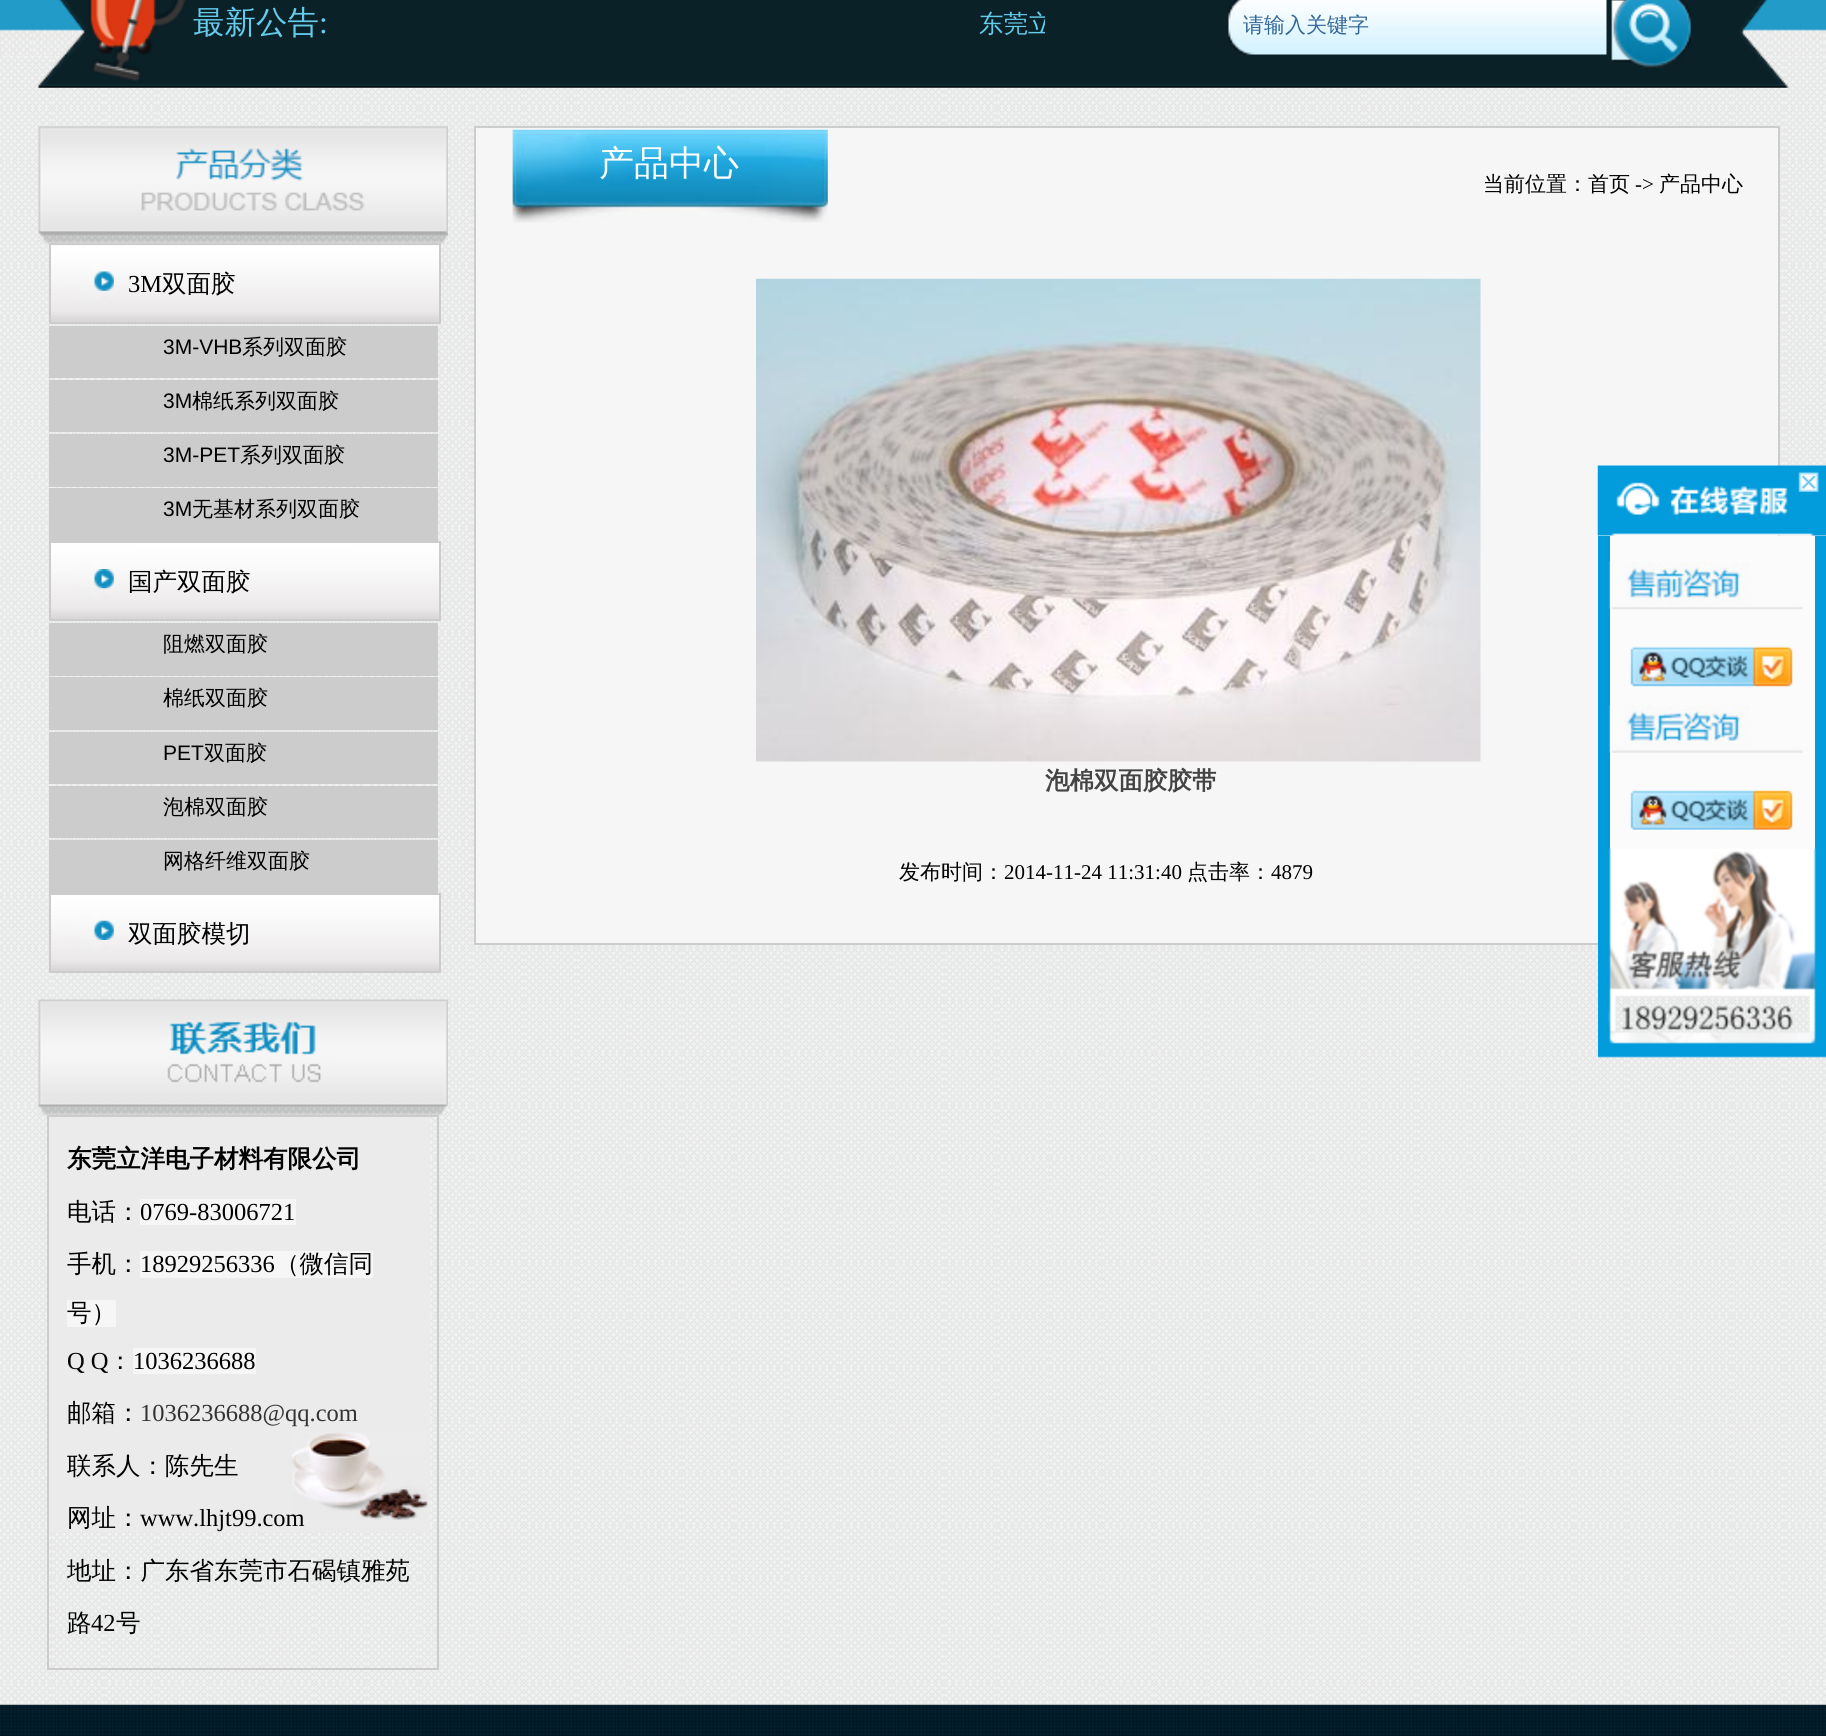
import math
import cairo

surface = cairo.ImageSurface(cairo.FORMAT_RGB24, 1826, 1736)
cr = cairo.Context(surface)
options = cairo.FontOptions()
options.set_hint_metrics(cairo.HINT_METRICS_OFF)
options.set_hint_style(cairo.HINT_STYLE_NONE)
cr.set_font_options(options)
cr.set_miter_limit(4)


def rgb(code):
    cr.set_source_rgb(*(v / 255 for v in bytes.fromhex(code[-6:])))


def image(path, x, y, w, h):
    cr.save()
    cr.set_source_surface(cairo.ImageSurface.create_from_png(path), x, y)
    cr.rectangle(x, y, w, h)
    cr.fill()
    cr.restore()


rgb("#ffffff")
cr.paint()
image("img/1.png", 0, 0, 1826, 57)
image("img/5.png", 0, 56, 1826, 1649)
image("img/2.png", 38, 0, 1751, 88)
image("img/3.png", 1228, 0, 379, 55)
image("img/4.png", 1611, 0, 80, 68)
image("img/6.png", 38, 126, 410, 118)
image("img/7.png", 51, 245, 388, 77)
cr.rectangle(50, 244, 390, 79)
rgb("#cccccc")
cr.stroke()
image("img/8.png", 94, 271, 20, 20)
for x, y, w, h, color in [
    (49, 326, 389, 52, "#cccccc"),
    (49, 380, 389, 52, "#cccccc"),
    (49, 434, 389, 53, "#cccccc"),
    (49, 488, 389, 53, "#cccccc"),
]:
    rgb(color)
    cr.rectangle(x, y, w, h)
    cr.fill()
image("img/9.png", 51, 543, 388, 76)
cr.rectangle(50, 542, 390, 78)
cr.stroke()
image("img/10.png", 94, 569, 20, 20)
for x, y, w, h, color in [
    (49, 623, 389, 53, "#cccccc"),
    (49, 677, 389, 53, "#cccccc"),
    (49, 732, 389, 52, "#cccccc"),
    (49, 786, 389, 52, "#cccccc"),
    (49, 840, 389, 53, "#cccccc"),
]:
    rgb(color)
    cr.rectangle(x, y, w, h)
    cr.fill()
image("img/11.png", 51, 895, 388, 76)
cr.rectangle(50, 894, 390, 78)
cr.stroke()
image("img/12.png", 94, 920, 20, 20)
image("img/13.png", 38, 999, 410, 116)
image("img/14.png", 49, 1117, 382, 415)
cr.rectangle(48, 1116, 390, 553)
cr.stroke()
for x, y, w, h, color in [
    (140, 1199, 156, 26, "#f6f6f6"),
    (140, 1251, 233, 27, "#f6f6f6"),
    (67, 1300, 49, 27, "#f6f6f6"),
    (133, 1348, 123, 26, "#f6f6f6"),
]:
    rgb(color)
    cr.rectangle(x, y, w, h)
    cr.fill()
cr.rectangle(475, 127, 1304, 817)
cr.fill_preserve()
rgb("#cccccc")
cr.stroke()
image("img/15.png", 512, 129, 316, 94)
image("img/16.png", 756, 278, 725, 484)
image("img/17.png", 1597, 465, 229, 71)
image("img/18.png", 1798, 471, 21, 21)
for x, y, w, h, color in [
    (1610, 536, 205, 313, "#fbfbfb"),
    (1815, 536, 11, 313, "#029bdb"),
    (1598, 536, 12, 313, "#029bdb"),
]:
    rgb(color)
    cr.rectangle(x, y, w, h)
    cr.fill()
image("img/19.png", 1609, 561, 194, 49)
image("img/20.png", 1630, 646, 163, 41)
image("img/21.png", 1609, 704, 194, 49)
image("img/22.png", 1630, 790, 163, 40)
image("img/23.png", 1598, 848, 228, 210)
image("img/24.png", 0, 1704, 1826, 32)
cr.select_font_face("WenQuanYi Zen Hei Medium")
cr.set_font_size(31.5)
rgb("#64cbed")
cr.move_to(193, 33)
cr.show_text("最新公告")
cr.select_font_face("Liberation Serif")
cr.move_to(319, 33)
cr.show_text(":")
cr.save()
cr.rectangle(345, 0, 700, 82)
cr.clip()
cr.select_font_face("WenQuanYi Zen Hei Medium")
cr.set_font_size(24.5)
cr.move_to(979, 32)
cr.show_text("东莞立")
cr.restore()
cr.select_font_face("WenQuanYi Zen Hei Medium")
cr.set_font_size(21)
rgb("#336699")
cr.move_to(1243, 32)
cr.show_text("请输入关键字")
cr.select_font_face("Liberation Serif")
cr.set_font_size(24.5)
rgb("#000000")
cr.move_to(128, 292)
cr.show_text("3M")
cr.select_font_face("WenQuanYi Zen Hei Medium")
cr.move_to(162, 292)
cr.show_text("双面胶")
cr.select_font_face("Liberation Sans")
cr.set_font_size(21)
cr.move_to(163, 354)
cr.show_text("3M-VHB")
cr.select_font_face("WenQuanYi Zen Hei Medium")
cr.move_to(242, 354)
cr.show_text("系列双面胶")
cr.select_font_face("Liberation Sans")
cr.move_to(163, 408)
cr.show_text("3M")
cr.select_font_face("WenQuanYi Zen Hei Medium")
cr.move_to(192, 408)
cr.show_text("棉纸系列双面胶")
cr.select_font_face("Liberation Sans")
cr.move_to(163, 462)
cr.show_text("3M-PET")
cr.select_font_face("WenQuanYi Zen Hei Medium")
cr.move_to(240, 462)
cr.show_text("系列双面胶")
cr.select_font_face("Liberation Sans")
cr.move_to(163, 516)
cr.show_text("3M")
cr.select_font_face("WenQuanYi Zen Hei Medium")
cr.move_to(192, 516)
cr.show_text("无基材系列双面胶")
cr.set_font_size(24.5)
cr.move_to(128, 590)
cr.show_text("国产双面胶")
cr.set_font_size(21)
cr.move_to(163, 651)
cr.show_text("阻燃双面胶")
cr.move_to(163, 705)
cr.show_text("棉纸双面胶")
cr.select_font_face("Liberation Sans")
cr.move_to(163, 760)
cr.show_text("PET")
cr.select_font_face("WenQuanYi Zen Hei Medium")
for x, y, s in [
    (204, 760, "双面胶"),
    (163, 814, "泡棉双面胶"),
    (163, 868, "网格纤维双面胶"),
]:
    cr.move_to(x, y)
    cr.show_text(s)
cr.set_font_size(24.5)
cr.move_to(128, 942)
cr.show_text("双面胶模切")
cr.select_font_face("WenQuanYi Zen Hei", cairo.FONT_SLANT_NORMAL, cairo.FONT_WEIGHT_BOLD)
cr.move_to(67, 1167)
cr.show_text("东莞立洋电子材料有限公司")
cr.select_font_face("WenQuanYi Zen Hei Medium")
cr.move_to(67, 1220)
cr.show_text("电话：")
cr.select_font_face("Liberation Serif")
cr.move_to(140, 1220)
cr.show_text("0769-83006721")
cr.select_font_face("WenQuanYi Zen Hei Medium")
cr.move_to(67, 1272)
cr.show_text("手机：")
cr.select_font_face("Liberation Serif")
cr.move_to(140, 1272)
cr.show_text("18929256336")
cr.select_font_face("WenQuanYi Zen Hei Medium")
cr.move_to(275, 1272)
cr.show_text("（微信同")
cr.move_to(67, 1321)
cr.show_text("号）")
cr.select_font_face("Liberation Serif")
cr.move_to(67, 1369)
cr.show_text("Q Q")
cr.select_font_face("WenQuanYi Zen Hei Medium")
cr.move_to(108, 1369)
cr.show_text("：")
cr.select_font_face("Liberation Serif")
cr.move_to(133, 1369)
cr.show_text("1036236688")
cr.select_font_face("WenQuanYi Zen Hei Medium")
cr.move_to(67, 1421)
cr.show_text("邮箱：")
cr.select_font_face("Liberation Serif")
rgb("#333333")
cr.move_to(140, 1421)
cr.show_text("1036236688@qq.com")
cr.select_font_face("WenQuanYi Zen Hei Medium")
rgb("#000000")
cr.move_to(67, 1474)
cr.show_text("联系人：陈先生")
cr.move_to(67, 1526)
cr.show_text("网址：")
cr.select_font_face("Liberation Serif")
cr.move_to(140, 1526)
cr.show_text("www.lhjt99.com")
cr.select_font_face("WenQuanYi Zen Hei Medium")
cr.move_to(67, 1579)
cr.show_text("地址：广东省东莞市石碣镇雅苑")
cr.move_to(67, 1631)
cr.show_text("路")
cr.select_font_face("Liberation Serif")
cr.move_to(91, 1631)
cr.show_text("42")
cr.select_font_face("WenQuanYi Zen Hei Medium")
cr.move_to(116, 1631)
cr.show_text("号")
cr.set_font_size(35)
rgb("#ffffff")
cr.move_to(599, 175)
cr.show_text("产品中心")
cr.set_font_size(21)
rgb("#000000")
cr.move_to(1483, 191)
cr.show_text("当前位置：首页")
cr.select_font_face("Liberation Serif")
cr.move_to(1635, 191)
cr.show_text("->")
cr.select_font_face("WenQuanYi Zen Hei Medium")
cr.move_to(1659, 191)
cr.show_text("产品中心")
cr.select_font_face("WenQuanYi Zen Hei", cairo.FONT_SLANT_NORMAL, cairo.FONT_WEIGHT_BOLD)
cr.set_font_size(24.5)
rgb("#444444")
cr.move_to(1045, 789)
cr.show_text("泡棉双面胶胶带")
cr.select_font_face("WenQuanYi Zen Hei Medium")
cr.set_font_size(21)
rgb("#000000")
cr.move_to(899, 879)
cr.show_text("发布时间：")
cr.select_font_face("Liberation Serif")
cr.move_to(1004, 879)
cr.show_text("2014-11-24 11:31:40")
cr.select_font_face("WenQuanYi Zen Hei Medium")
cr.move_to(1187, 879)
cr.show_text("点击率：")
cr.select_font_face("Liberation Serif")
cr.move_to(1271, 879)
cr.show_text("4879")
surface.write_to_png("page.png")
